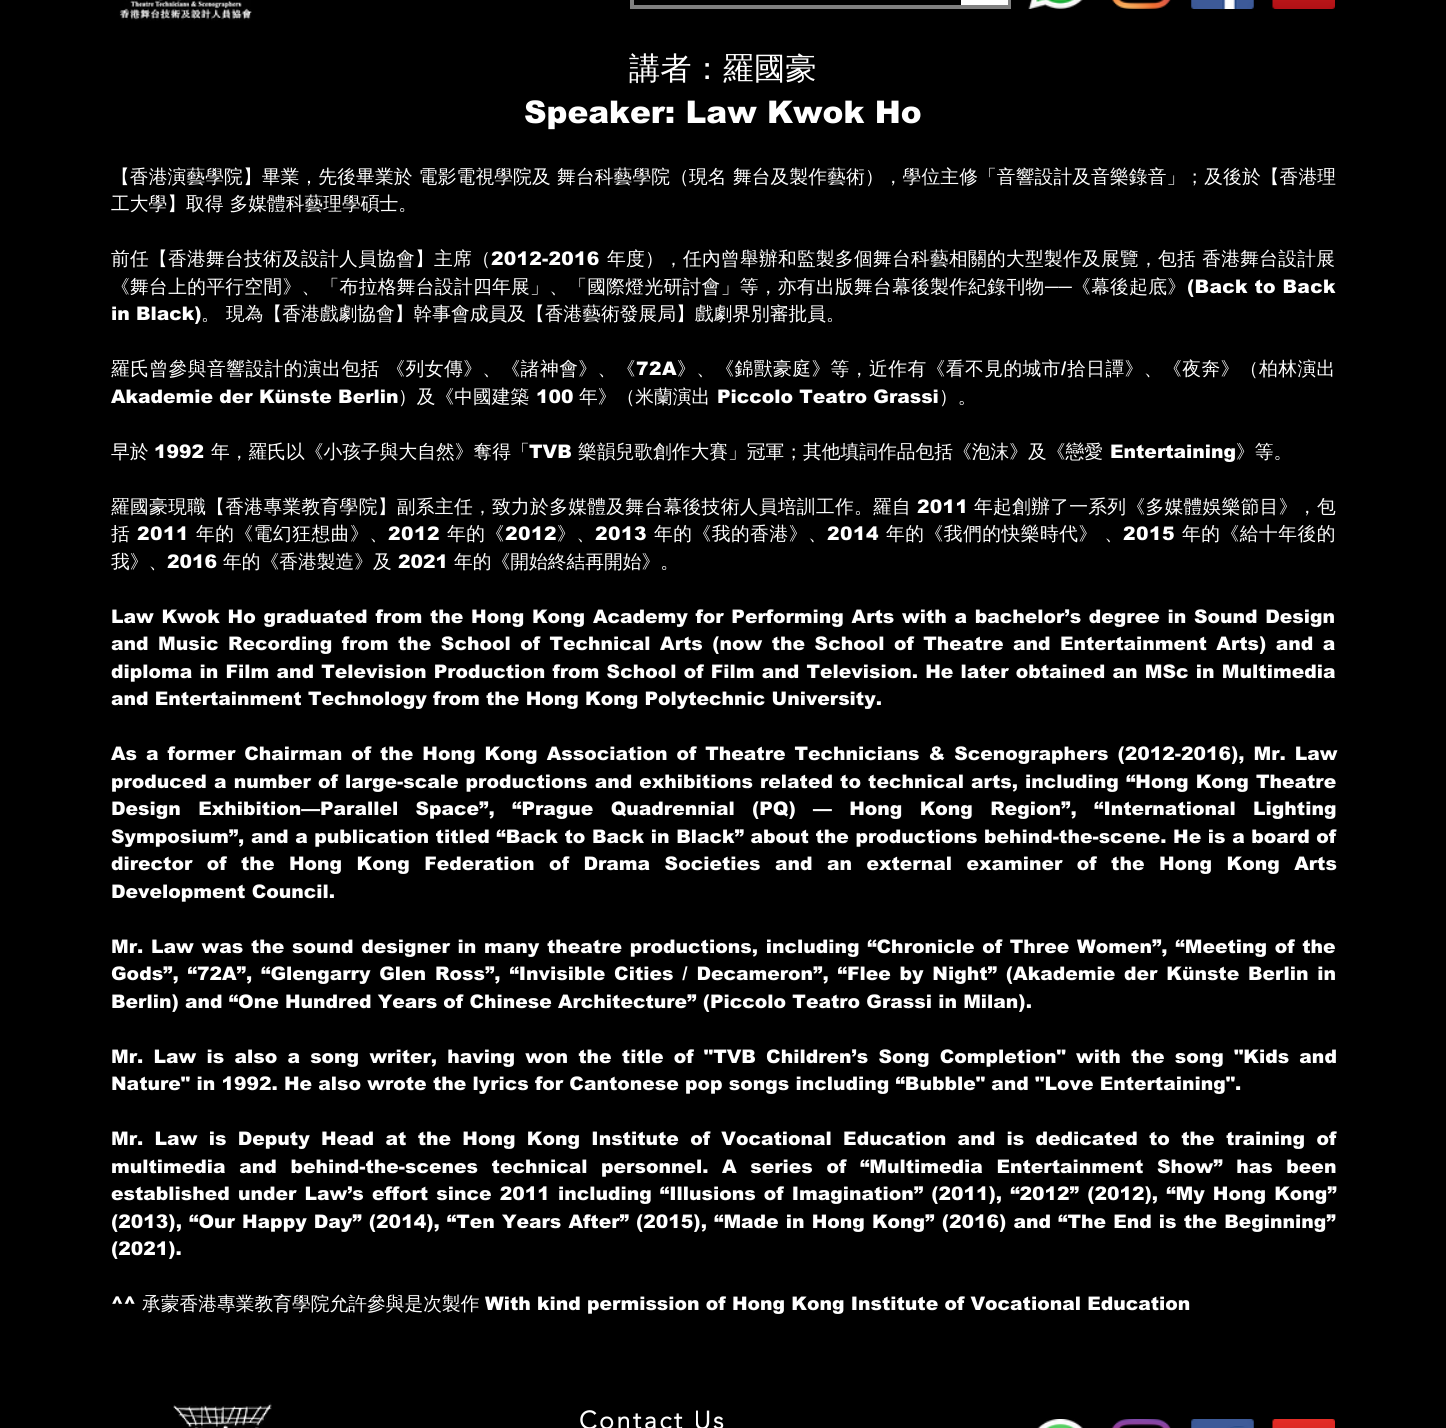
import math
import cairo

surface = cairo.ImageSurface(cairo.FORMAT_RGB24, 1446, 1428)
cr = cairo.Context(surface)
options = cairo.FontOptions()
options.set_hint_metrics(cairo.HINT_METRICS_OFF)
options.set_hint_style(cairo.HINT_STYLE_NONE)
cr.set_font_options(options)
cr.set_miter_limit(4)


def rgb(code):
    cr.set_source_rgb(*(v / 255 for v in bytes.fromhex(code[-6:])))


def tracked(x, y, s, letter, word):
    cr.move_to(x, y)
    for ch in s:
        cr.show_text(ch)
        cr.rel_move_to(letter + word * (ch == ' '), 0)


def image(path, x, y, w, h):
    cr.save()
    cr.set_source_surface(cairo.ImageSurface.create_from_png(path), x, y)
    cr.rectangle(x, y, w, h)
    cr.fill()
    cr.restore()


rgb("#000000")
cr.paint()
image("img/1.png", 119, 0, 133, 21)
cr.rectangle(632, -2, 377, 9)
rgb("#808080")
cr.set_line_width(4)
cr.stroke()
rgb("#ffffff")
cr.rectangle(961, 0, 47, 5)
cr.fill()
image("img/2.png", 1028, 0, 55, 9)
image("img/3.png", 1111, 0, 60, 9)
image("img/4.png", 1191, 0, 63, 9)
image("img/5.png", 1272, 0, 63, 9)
image("img/6.png", 173, 1402, 99, 26)
image("img/7.png", 1037, 1419, 46, 9)
image("img/8.png", 1111, 1419, 60, 9)
image("img/9.png", 1191, 1419, 63, 9)
image("img/10.png", 1272, 1419, 63, 9)
cr.select_font_face("WenQuanYi Zen Hei Medium")
cr.set_font_size(31.25)
cr.move_to(629, 79)
cr.show_text("講者：羅國豪")
cr.select_font_face("arial Black")
cr.move_to(524, 123)
cr.show_text("Speaker: Law Kwok Ho")
cr.select_font_face("WenQuanYi Zen Hei Medium")
cr.set_font_size(18.75)
tracked(111, 183, "【香港演藝學院】畢業，先後畢業於 電影電視學院及 舞台科藝學院（現名 舞台及製作藝術），學位主修「音響設計及音樂錄音」；及後於【香港理", 0.1, 0.5)
tracked(111, 210, "工大學】取得 多媒體科藝理學碩士。", 0, 0.5)
tracked(111, 265, "前任【香港舞台技術及設計人員協會】主席（", 0.25, 0)
cr.select_font_face("arial Black")
tracked(491, 265, "2012-2016", 0.25, 0)
cr.select_font_face("WenQuanYi Zen Hei Medium")
tracked(607, 265, "年度），任內曾舉辦和監製多個舞台科藝相關的大型製作及展覽，包括 香港舞台設計展", 0.25, 0.5)
tracked(111, 293, "《舞台上的平行空間》、「布拉格舞台設計四年展」、「國際燈光研討會」等，亦有出版舞台幕後製作紀錄刊物", 0.3, 0)
cr.select_font_face("Liberation Sans")
tracked(1045, 293, "──", 0.3, 0)
cr.select_font_face("WenQuanYi Zen Hei Medium")
tracked(1072, 293, "《幕後起底》", 0.3, 0)
cr.select_font_face("arial Black")
tracked(1187, 293, "(Back to Back", 0.3, 0)
cr.move_to(111, 320)
cr.show_text("in Black)")
cr.select_font_face("WenQuanYi Zen Hei Medium")
cr.move_to(201, 320)
cr.show_text("。")
cr.move_to(226, 320)
cr.show_text("現為【香港戲劇協會】幹事會成員及【香港藝術發展局】戲劇界別審批員。")
tracked(111, 375, "羅氏曾參與音響設計的演出包括 《列女傳》、《諸神會》、《", 0.45, 0.5)
cr.select_font_face("arial Black")
tracked(636, 375, "72A", 0.45, 0)
cr.select_font_face("WenQuanYi Zen Hei Medium")
tracked(677, 375, "》、《錦獸豪庭》等，近作有《看不見的城市", 0.45, 0)
cr.select_font_face("arial Black")
tracked(1061, 375, "/", 0.45, 0)
cr.select_font_face("WenQuanYi Zen Hei Medium")
tracked(1067, 375, "拾日譚》、《夜奔》（柏林演出", 0.45, 0)
cr.select_font_face("arial Black")
cr.move_to(111, 403)
cr.show_text("Akademie der Künste Berlin")
cr.select_font_face("WenQuanYi Zen Hei Medium")
cr.move_to(398, 403)
cr.show_text("）及《中國建築")
cr.select_font_face("arial Black")
cr.move_to(536, 403)
cr.show_text("100")
cr.select_font_face("WenQuanYi Zen Hei Medium")
cr.move_to(579, 403)
cr.show_text("年》（米蘭演出")
cr.select_font_face("arial Black")
cr.move_to(717, 403)
cr.show_text("Piccolo Teatro Grassi")
cr.select_font_face("WenQuanYi Zen Hei Medium")
cr.move_to(939, 403)
cr.show_text("）。")
cr.move_to(111, 458)
cr.show_text("早於")
cr.select_font_face("arial Black")
cr.move_to(154, 458)
cr.show_text("1992")
cr.select_font_face("WenQuanYi Zen Hei Medium")
cr.move_to(211, 458)
cr.show_text("年，羅氏以《小孩子與大自然》奪得「")
cr.select_font_face("arial Black")
cr.move_to(529, 458)
cr.show_text("TVB")
cr.select_font_face("WenQuanYi Zen Hei Medium")
cr.move_to(578, 458)
cr.show_text("樂韻兒歌創作大賽」冠軍；其他填詞作品包括《泡沫》及《戀愛")
cr.select_font_face("arial Black")
cr.move_to(1110, 458)
cr.show_text("Entertaining")
cr.select_font_face("WenQuanYi Zen Hei Medium")
cr.move_to(1236, 458)
cr.show_text("》等。")
tracked(111, 513, "羅國豪現職【香港專業教育學院】副系主任，致力於多媒體及舞台幕後技術人員培訓工作。羅自", 0.3, 0)
cr.select_font_face("arial Black")
tracked(917, 513, "2011", 0.3, 0)
cr.select_font_face("WenQuanYi Zen Hei Medium")
tracked(974, 513, "年起創辦了一系列《多媒體娛樂節目》，包", 0.3, 0)
tracked(111, 540, "括", 0.5, 0)
cr.select_font_face("arial Black")
tracked(137, 540, "2011", 0.5, 0)
cr.select_font_face("WenQuanYi Zen Hei Medium")
tracked(196, 540, "年的《電幻狂想曲》、", 0.5, 0)
cr.select_font_face("arial Black")
tracked(388, 540, "2012", 0.5, 0)
cr.select_font_face("WenQuanYi Zen Hei Medium")
tracked(447, 540, "年的《", 0.5, 0)
cr.select_font_face("arial Black")
tracked(505, 540, "2012", 0.5, 0)
cr.select_font_face("WenQuanYi Zen Hei Medium")
tracked(557, 540, "》、", 0.5, 0)
cr.select_font_face("arial Black")
tracked(595, 540, "2013", 0.5, 0)
cr.select_font_face("WenQuanYi Zen Hei Medium")
tracked(654, 540, "年的《我的香港》、", 0.5, 0)
cr.select_font_face("arial Black")
tracked(827, 540, "2014", 0.5, 0)
cr.select_font_face("WenQuanYi Zen Hei Medium")
tracked(886, 540, "年的《我們的快樂時代》 、", 0.5, 0.5)
cr.select_font_face("arial Black")
tracked(1123, 540, "2015", 0.5, 0)
cr.select_font_face("WenQuanYi Zen Hei Medium")
tracked(1182, 540, "年的《給十年後的", 0.5, 0)
cr.move_to(111, 568)
cr.show_text("我》、")
cr.select_font_face("arial Black")
cr.move_to(167, 568)
cr.show_text("2016")
cr.select_font_face("WenQuanYi Zen Hei Medium")
cr.move_to(223, 568)
cr.show_text("年的《香港製造》及")
cr.select_font_face("arial Black")
cr.move_to(398, 568)
cr.show_text("2021")
cr.select_font_face("WenQuanYi Zen Hei Medium")
cr.move_to(454, 568)
cr.show_text("年的《開始終結再開始》。")
cr.select_font_face("arial Black")
tracked(111, 623, "Law Kwok Ho graduated from the Hong Kong Academy for Performing Arts with a bachelor’s degree in Sound Design", 0, 1.5)
tracked(111, 650, "and Music Recording from the School of Technical Arts (now the School of Theatre and Entertainment Arts) and a", 0, 3.25)
tracked(111, 678, "diploma in Film and Television Production from School of Film and Television. He later obtained an MSc in Multimedia", 0, 1)
cr.move_to(111, 705)
cr.show_text("and Entertainment Technology from the Hong Kong Polytechnic University.")
tracked(111, 760, "As a former Chairman of the Hong Kong Association of Theatre Technicians & Scenographers (2012-2016), Mr. Law", 0, 2.75)
tracked(111, 788, "produced a number of large-scale productions and exhibitions related to technical arts, including “Hong Kong Theatre", 0, 0.9)
tracked(111, 815, "Design Exhibition—Parallel Space”, “Prague Quadrennial (PQ) — Hong Kong Region”, “International Lighting", 0, 11.1)
tracked(111, 843, "Symposium”, and a publication titled “Back to Back in Black” about the productions behind-the-scene. He is a board of", 0, 0.4)
tracked(111, 870, "director of the Hong Kong Federation of Drama Societies and an external examiner of the Hong Kong Arts", 0, 8.25)
cr.move_to(111, 898)
cr.show_text("Development Council.")
tracked(111, 953, "Mr. Law was the sound designer in many theatre productions, including “Chronicle of Three Women”, “Meeting of the", 0, 1.5)
tracked(111, 980, "Gods”, “72A”, “Glengarry Glen Ross”, “Invisible Cities / Decameron”, “Flee by Night” (Akademie der Künste Berlin in", 0, 2.6)
cr.move_to(111, 1008)
cr.show_text("Berlin) and “One Hundred Years of Chinese Architecture” (Piccolo Teatro Grassi in Milan).")
tracked(111, 1063, "Mr. Law is also a song writer, having won the title of \"TVB Children’s Song Completion\" with the song \"Kids and", 0, 4)
cr.move_to(111, 1090)
cr.show_text("Nature\" in 1992. He also wrote the lyrics for Cantonese pop songs including “Bubble\" and \"Love Entertaining\".")
tracked(111, 1145, "Mr. Law is Deputy Head at the Hong Kong Institute of Vocational Education and is dedicated to the training of", 0, 5.1)
tracked(111, 1173, "multimedia and behind-the-scenes technical personnel. A series of “Multimedia Entertainment Show” has been", 0, 7.4)
tracked(111, 1200, "established under Law’s effort since 2011 including “Illusions of Imagination” (2011), “2012” (2012), “My Hong Kong”", 0, 1.9)
tracked(111, 1228, "(2013), “Our Happy Day” (2014), “Ten Years After” (2015), “Made in Hong Kong” (2016) and “The End is the Beginning”", 0, 0.9)
cr.move_to(111, 1255)
cr.show_text("(2021).")
cr.move_to(111, 1310)
cr.show_text("^^")
cr.select_font_face("WenQuanYi Zen Hei Medium")
cr.move_to(142, 1310)
cr.show_text("承蒙香港專業教育學院允許參與是次製作")
cr.select_font_face("arial Black")
cr.move_to(485, 1310)
cr.show_text("With kind permission of Hong Kong Institute of Vocational Education")
cr.select_font_face("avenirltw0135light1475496", cairo.FONT_SLANT_NORMAL, cairo.FONT_WEIGHT_BOLD)
cr.set_font_size(25)
tracked(579, 1429, "Contact Us", 2.5, 0)
surface.write_to_png("page.png")
